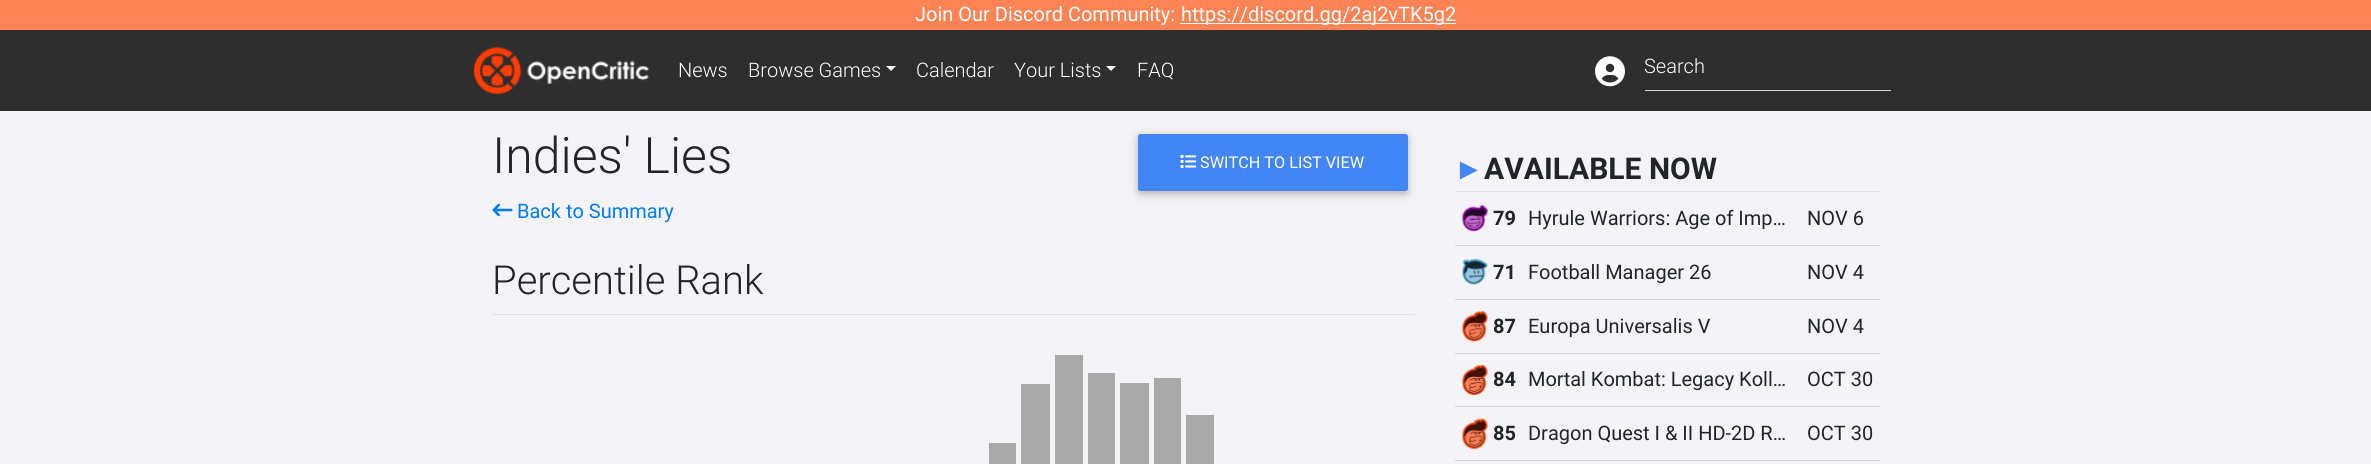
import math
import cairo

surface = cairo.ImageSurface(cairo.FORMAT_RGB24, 2371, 464)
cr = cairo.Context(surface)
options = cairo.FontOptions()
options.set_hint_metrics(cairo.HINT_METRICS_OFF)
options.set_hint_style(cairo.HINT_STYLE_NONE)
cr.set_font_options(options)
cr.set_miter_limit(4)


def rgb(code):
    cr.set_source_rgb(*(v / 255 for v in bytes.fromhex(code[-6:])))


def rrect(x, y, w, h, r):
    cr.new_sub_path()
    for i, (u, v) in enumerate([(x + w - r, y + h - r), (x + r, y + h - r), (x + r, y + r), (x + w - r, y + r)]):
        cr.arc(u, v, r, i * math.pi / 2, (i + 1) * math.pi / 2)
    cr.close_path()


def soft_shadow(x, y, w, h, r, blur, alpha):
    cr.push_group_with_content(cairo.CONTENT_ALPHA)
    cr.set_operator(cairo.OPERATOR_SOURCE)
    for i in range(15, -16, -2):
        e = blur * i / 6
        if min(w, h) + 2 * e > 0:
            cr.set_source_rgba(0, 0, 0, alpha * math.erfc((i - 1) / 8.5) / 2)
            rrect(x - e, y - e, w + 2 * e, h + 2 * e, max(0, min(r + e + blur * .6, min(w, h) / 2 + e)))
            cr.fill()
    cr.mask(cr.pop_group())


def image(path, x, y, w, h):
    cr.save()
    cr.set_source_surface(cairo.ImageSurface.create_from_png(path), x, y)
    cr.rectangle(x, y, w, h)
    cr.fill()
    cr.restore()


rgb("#f4f4f8")
cr.paint()
for x, y, w, h, color in [
    (0, 0, 2371, 30, "#ff8354"),
    (1180, 23, 276, 1, "#ffffff"),
    (0, 30, 2371, 81, "#2e2e2e"),
]:
    rgb(color)
    cr.rectangle(x, y, w, h)
    cr.fill()
image("img/1.png", 473, 47, 176, 47)
rgb("#ffffff")
cr.new_path()
cr.move_to(886, 66)
cr.line_to(896, 66)
cr.line_to(891, 71)
cr.close_path()
cr.fill()
cr.new_path()
cr.move_to(1106, 66)
cr.line_to(1116, 66)
cr.line_to(1111, 71)
cr.close_path()
cr.fill()
image("img/2.png", 1595, 56, 30, 31)
rgb("#ced4da")
cr.rectangle(1645, 90, 246, 1)
cr.fill()
image("img/3.png", 492, 203, 21, 14)
rgb("#000000")
soft_shadow(1138, 136, 270, 58, 2.5, 6, 0.12)
soft_shadow(1138, 136, 270, 58, 2.5, 3, 0.16)
rgb("#4285f4")
rrect(1138, 134, 270, 57, 2.5)
cr.fill()
image("img/4.png", 1180, 154, 17, 14)
for x, y, w, h, color in [
    (493, 314, 922, 1, "#dee2e6"),
    (989, 443, 27, 21, "#a9a9a9"),
    (1021, 384, 29, 80, "#a9a9a9"),
    (1055, 355, 28, 109, "#a9a9a9"),
    (1088, 373, 27, 91, "#a9a9a9"),
    (1120, 383, 29, 81, "#a9a9a9"),
    (1154, 378, 27, 86, "#a9a9a9"),
    (1186, 415, 28, 49, "#a9a9a9"),
    (1455, 191, 425, 1, "#dee2e6"),
    (1455, 245, 425, 1, "#d3d3d3"),
]:
    rgb(color)
    cr.rectangle(x, y, w, h)
    cr.fill()
image("img/5.png", 1462, 204, 26, 28)
cr.rectangle(1455, 299, 425, 1)
cr.fill()
image("img/6.png", 1462, 258, 26, 27)
cr.rectangle(1455, 353, 425, 1)
cr.fill()
image("img/7.png", 1462, 311, 26, 31)
cr.rectangle(1455, 406, 425, 1)
cr.fill()
image("img/8.png", 1462, 365, 26, 30)
cr.rectangle(1455, 460, 425, 1)
cr.fill()
image("img/9.png", 1462, 418, 26, 31)
cr.select_font_face("Roboto")
cr.set_font_size(20)
rgb("#ffffff")
cr.move_to(915, 21)
cr.show_text("Join Our Discord Community:")
cr.move_to(1181, 21)
cr.show_text("https://discord.gg/2aj2vTK5g2")
cr.select_font_face("Roboto Light")
for x, y, s in [
    (678, 77, "News"),
    (748, 77, "Browse Games"),
    (916, 77, "Calendar"),
    (1014, 77, "Your Lists"),
    (1137, 77, "FAQ"),
    (1644, 73, "Search"),
]:
    cr.move_to(x, y)
    cr.show_text(s)
cr.set_font_size(50)
rgb("#212529")
cr.move_to(492, 173)
cr.show_text("Indies' Lies")
cr.select_font_face("Roboto")
cr.set_font_size(20)
rgb("#007bff")
cr.move_to(517, 218)
cr.show_text("Back to Summary")
cr.set_font_size(16.25)
rgb("#ffffff")
cr.move_to(1200, 168)
cr.show_text("SWITCH TO LIST VIEW")
cr.select_font_face("Roboto Light")
cr.set_font_size(40)
rgb("#212529")
cr.move_to(492, 294)
cr.show_text("Percentile Rank")
cr.select_font_face("Liberation Sans", cairo.FONT_SLANT_NORMAL, cairo.FONT_WEIGHT_BOLD)
cr.set_font_size(30)
rgb("#4285f4")
cr.move_to(1454, 179)
cr.show_text("►")
cr.select_font_face("Roboto", cairo.FONT_SLANT_NORMAL, cairo.FONT_WEIGHT_BOLD)
rgb("#212529")
cr.move_to(1484, 179)
cr.show_text("AVAILABLE NOW")
cr.set_font_size(20)
cr.move_to(1493, 225)
cr.show_text("79")
cr.select_font_face("Roboto")
cr.move_to(1528, 225)
cr.show_text("Hyrule Warriors: Age of Imp…")
cr.move_to(1807, 225)
cr.show_text("NOV 6")
cr.select_font_face("Roboto", cairo.FONT_SLANT_NORMAL, cairo.FONT_WEIGHT_BOLD)
cr.move_to(1493, 279)
cr.show_text("71")
cr.select_font_face("Roboto")
cr.move_to(1528, 279)
cr.show_text("Football Manager 26")
cr.move_to(1807, 279)
cr.show_text("NOV 4")
cr.select_font_face("Roboto", cairo.FONT_SLANT_NORMAL, cairo.FONT_WEIGHT_BOLD)
cr.move_to(1493, 333)
cr.show_text("87")
cr.select_font_face("Roboto")
cr.move_to(1528, 333)
cr.show_text("Europa Universalis V")
cr.move_to(1807, 333)
cr.show_text("NOV 4")
cr.select_font_face("Roboto", cairo.FONT_SLANT_NORMAL, cairo.FONT_WEIGHT_BOLD)
cr.move_to(1493, 386)
cr.show_text("84")
cr.select_font_face("Roboto")
cr.move_to(1528, 386)
cr.show_text("Mortal Kombat: Legacy Koll…")
cr.move_to(1807, 386)
cr.show_text("OCT 30")
cr.select_font_face("Roboto", cairo.FONT_SLANT_NORMAL, cairo.FONT_WEIGHT_BOLD)
cr.move_to(1493, 440)
cr.show_text("85")
cr.select_font_face("Roboto")
cr.move_to(1528, 440)
cr.show_text("Dragon Quest I & II HD-2D R…")
cr.move_to(1807, 440)
cr.show_text("OCT 30")
surface.write_to_png("page.png")
